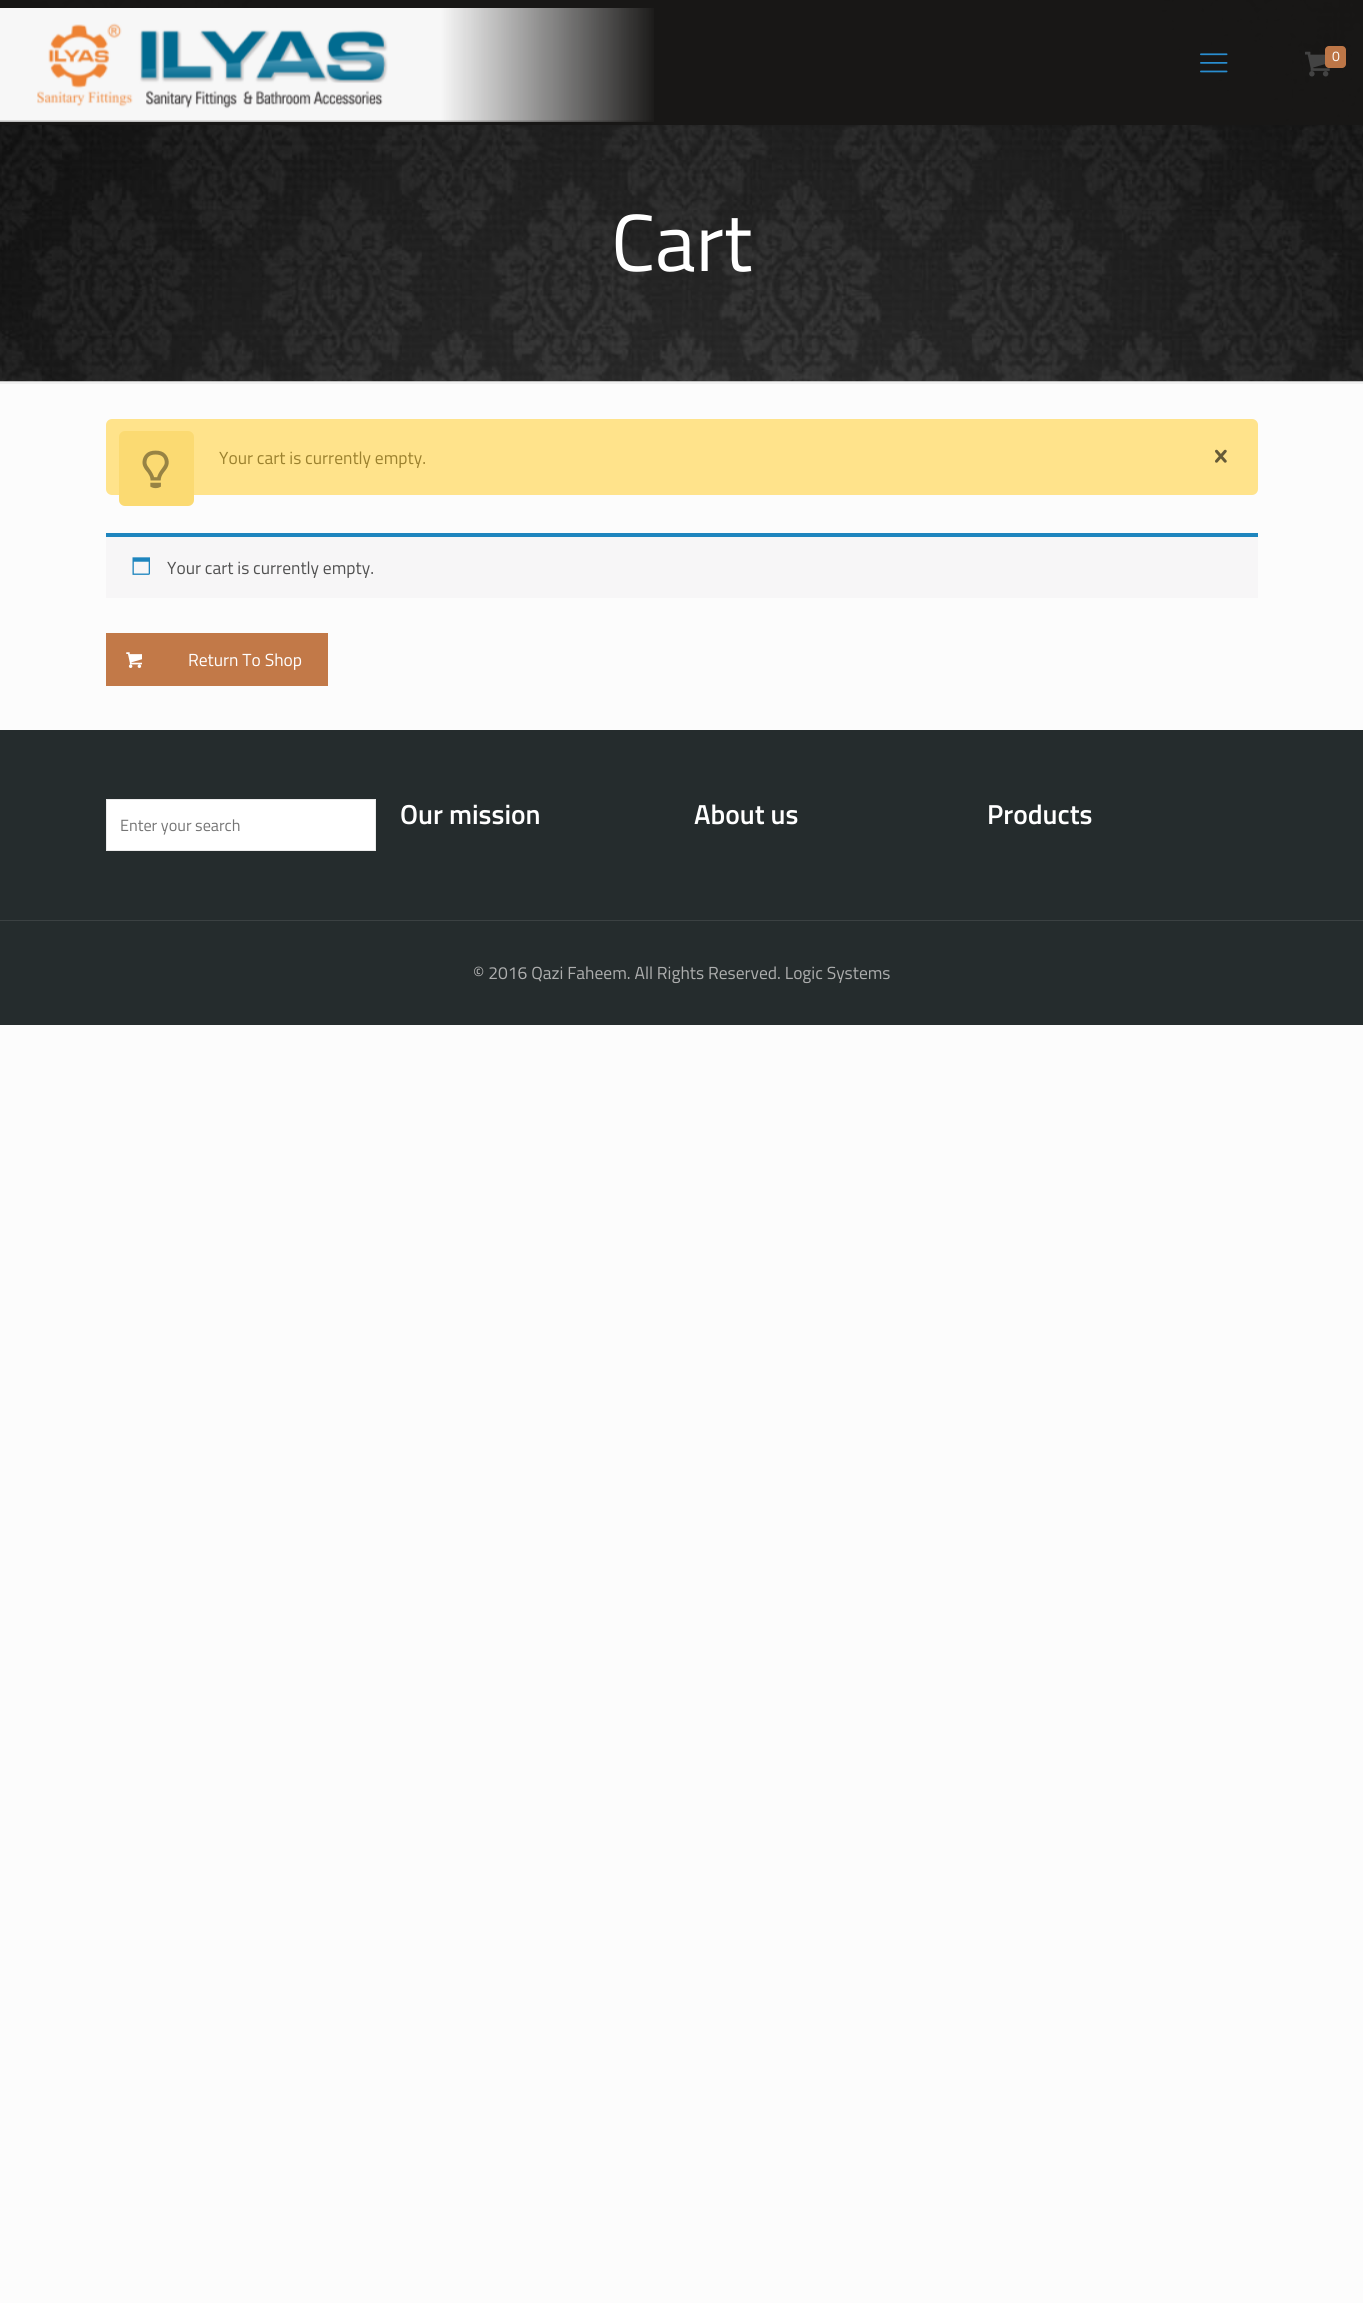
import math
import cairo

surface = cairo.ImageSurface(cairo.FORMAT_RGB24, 1363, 2303)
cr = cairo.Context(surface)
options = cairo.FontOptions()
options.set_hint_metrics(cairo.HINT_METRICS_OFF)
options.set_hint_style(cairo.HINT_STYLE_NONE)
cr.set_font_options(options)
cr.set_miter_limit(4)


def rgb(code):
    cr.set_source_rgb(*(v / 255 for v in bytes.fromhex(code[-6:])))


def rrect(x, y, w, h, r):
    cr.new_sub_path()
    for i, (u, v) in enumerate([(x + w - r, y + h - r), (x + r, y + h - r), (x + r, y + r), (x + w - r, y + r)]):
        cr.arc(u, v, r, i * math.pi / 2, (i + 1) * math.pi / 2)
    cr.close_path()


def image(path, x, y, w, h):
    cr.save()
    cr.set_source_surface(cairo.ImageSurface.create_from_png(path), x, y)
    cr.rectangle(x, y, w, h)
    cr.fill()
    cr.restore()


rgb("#fcfcfc")
cr.paint()
image("img/1.png", 0, 0, 1363, 382)
cr.set_source_rgba(0.094, 0.09, 0.086, 0.97)
cr.rectangle(0, 0, 1363, 125)
cr.fill()
image("img/2.png", 0, 8, 654, 114)
image("img/3.png", 1200, 53, 28, 20)
image("img/4.png", 1305, 51, 25, 26)
cr.set_source_rgba(0.761, 0.475, 0.282, 0.97)
rrect(1325, 46, 21, 22, 4)
cr.fill()
cr.set_source_rgba(0, 0, 0, 0.05)
cr.rectangle(0, 381, 1363, 3)
cr.fill()
rgb("#ffe38b")
rrect(106, 419, 1152, 76, 6)
cr.fill()
rgb("#fbda72")
rrect(119, 431, 75, 75, 6)
cr.fill()
image("img/5.png", 142, 450, 27, 39)
image("img/6.png", 1215, 449, 12, 14)
rgb("#f7f6f7")
cr.rectangle(106, 537, 1152, 61)
cr.fill()
rgb("#1e85be")
cr.rectangle(106, 533, 1152, 4)
cr.fill()
image("img/7.png", 132, 557, 18, 18)
rgb("#c27948")
cr.rectangle(106, 633, 222, 53)
cr.fill()
image("img/8.png", 126, 652, 16, 16)
rgb("#252c2d")
cr.rectangle(0, 730, 1363, 295)
cr.fill()
rgb("#ffffff")
cr.rectangle(106.5, 799.5, 269, 51)
cr.fill_preserve()
rgb("#ebebeb")
cr.set_line_width(1)
cr.stroke()
rgb("#3b4142")
cr.rectangle(0, 920, 1363, 1)
cr.fill()
cr.select_font_face("Titillium Web")
cr.set_font_size(14)
rgb("#fdfbf9")
cr.move_to(1332, 61)
cr.show_text("0")
cr.set_font_size(81)
rgb("#ffffff")
cr.move_to(611, 271)
cr.show_text("Cart")
cr.set_font_size(17.5)
rgb("#9b812e")
cr.move_to(219, 464)
cr.show_text("Your cart is currently empty.")
rgb("#515151")
cr.move_to(167, 574)
cr.show_text("Your cart is currently empty.")
rgb("#ffffff")
cr.move_to(188, 666)
cr.show_text("Return To Shop")
cr.select_font_face("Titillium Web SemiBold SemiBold")
cr.set_font_size(27.5)
for x, y, s in [
    (400, 824, "Our mission"),
    (694, 824, "About us"),
    (987, 824, "Products"),
]:
    cr.move_to(x, y)
    cr.show_text(s)
cr.select_font_face("Titillium Web")
cr.set_font_size(16.25)
rgb("#757575")
cr.move_to(120, 831)
cr.show_text("Enter your search")
cr.set_font_size(17.5)
rgb("#adaeae")
cr.move_to(473, 979)
cr.show_text("© 2016 Qazi Faheem. All Rights Reserved. Logic Systems")
surface.write_to_png("page.png")
